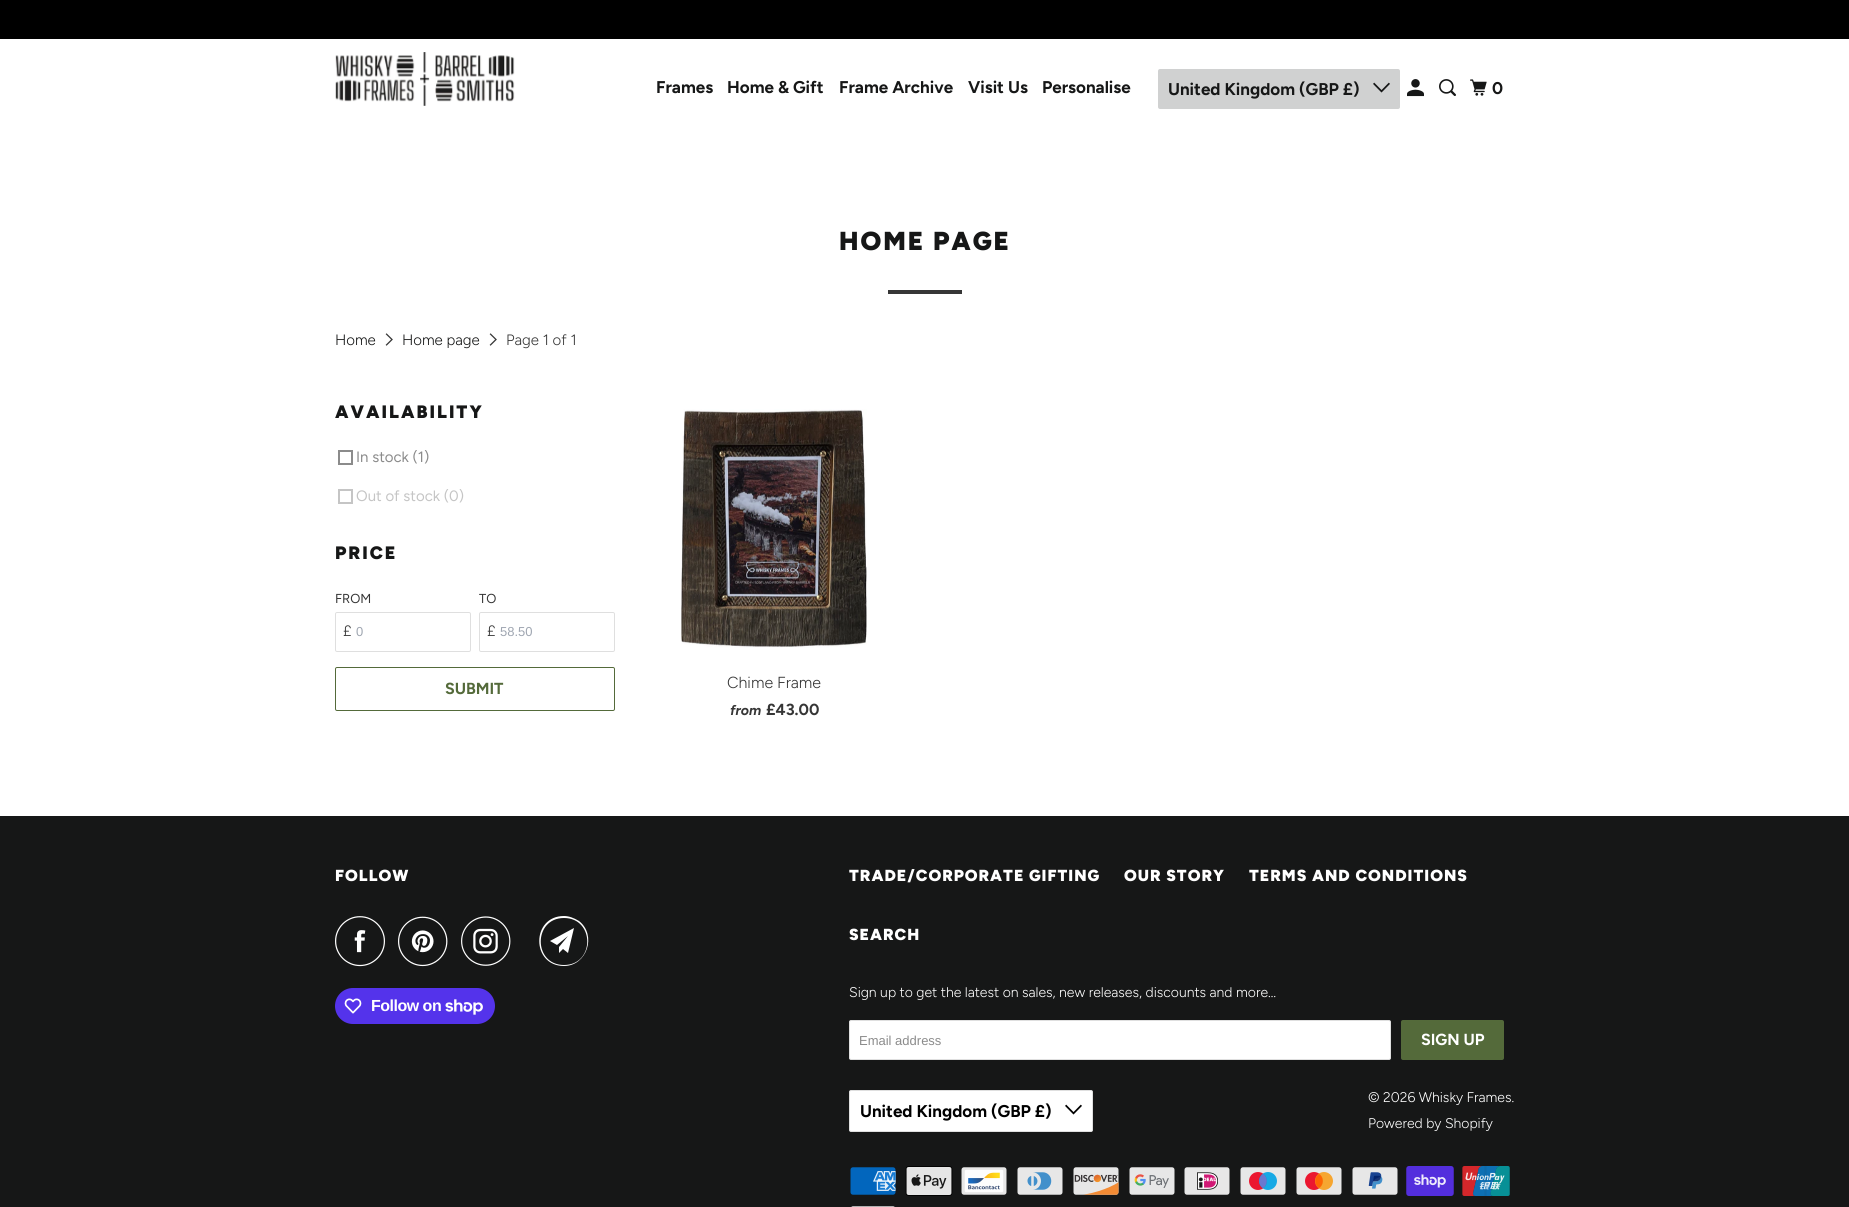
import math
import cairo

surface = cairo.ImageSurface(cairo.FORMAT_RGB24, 1849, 1207)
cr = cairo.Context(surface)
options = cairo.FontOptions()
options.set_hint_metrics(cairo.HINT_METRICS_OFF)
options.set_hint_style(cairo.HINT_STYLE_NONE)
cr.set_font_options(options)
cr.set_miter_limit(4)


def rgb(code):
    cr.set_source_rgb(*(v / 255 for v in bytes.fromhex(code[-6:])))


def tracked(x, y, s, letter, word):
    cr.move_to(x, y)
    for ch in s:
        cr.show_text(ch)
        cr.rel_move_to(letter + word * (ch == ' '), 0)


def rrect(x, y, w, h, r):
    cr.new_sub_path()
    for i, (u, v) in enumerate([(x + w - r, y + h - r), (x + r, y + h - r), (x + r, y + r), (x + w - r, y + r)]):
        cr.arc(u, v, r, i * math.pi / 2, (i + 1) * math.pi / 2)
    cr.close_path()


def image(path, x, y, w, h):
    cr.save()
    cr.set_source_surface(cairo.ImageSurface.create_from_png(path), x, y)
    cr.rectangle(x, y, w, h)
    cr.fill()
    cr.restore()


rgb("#ffffff")
cr.paint()
rgb("#000000")
cr.rectangle(0, 0, 1849, 39)
cr.fill()
image("img/1.png", 335, 52, 180, 54)
rgb("#d0d1d1")
rrect(1158, 69, 242, 40, 2)
cr.fill()
image("img/2.png", 1373, 82, 17, 11)
image("img/3.png", 1407, 79, 17, 18)
image("img/4.png", 1439, 79, 17, 17)
image("img/5.png", 1470, 79, 17, 17)
rgb("#363636")
cr.rectangle(888, 290, 74, 4)
cr.fill()
image("img/6.png", 385, 333, 8, 13)
image("img/6.png", 489, 333, 8, 13)
cr.rectangle(339, 451, 13, 13)
rgb("#8b8b8b")
cr.stroke()
cr.rectangle(339, 490, 13, 13)
rgb("#c5c5c5")
cr.stroke()
rrect(335.5, 612.5, 135, 39, 1.5)
rgb("#dfdfdf")
cr.set_line_width(1)
cr.stroke()
rrect(479.5, 612.5, 135, 39, 1.5)
cr.stroke()
rrect(335.5, 667.5, 279, 43, 1.5)
rgb("#546a3a")
cr.stroke()
image("img/7.png", 681, 409, 186, 239)
rgb("#161717")
cr.rectangle(0, 816, 1849, 391)
cr.fill()
image("img/8.png", 335, 916, 50, 51)
image("img/9.png", 398, 916, 50, 51)
image("img/10.png", 461, 916, 50, 50)
rgb("#ffffff")
cr.new_path()
cr.move_to(568, 953)
cr.line_to(563, 949)
cr.line_to(559, 953)
cr.line_to(559, 947)
cr.line_to(568, 936)
cr.line_to(557, 945)
cr.line_to(550, 941)
cr.line_to(574, 928)
cr.close_path()
cr.move_to(564, 918)
cr.curve_to(533, 918, 533, 965, 564, 965)
cr.curve_to(595, 965, 595, 918, 564, 918)
cr.close_path()
cr.move_to(564, 966)
cr.curve_to(531, 966, 531, 916, 564, 916)
cr.curve_to(569, 916, 574, 918, 579, 921)
cr.curve_to(597, 935, 587, 966, 564, 966)
cr.close_path()
cr.fill()
rgb("#5433eb")
rrect(335, 988, 160, 36, 18)
cr.fill()
image("img/11.png", 344, 998, 18, 16)
image("img/12.png", 445, 999, 38, 16)
rgb("#ffffff")
rrect(849.5, 1020.5, 541, 39, 1.5)
cr.fill_preserve()
rgb("#dfdfdf")
cr.stroke()
rgb("#546a3a")
rrect(1401, 1020, 103, 40, 2)
cr.fill()
rgb("#ffffff")
rrect(849.5, 1090.5, 243, 41, 1.5)
cr.fill_preserve()
rgb("#dfdfdf")
cr.stroke()
image("img/13.png", 1065, 1104, 17, 11)
image("img/14.png", 850, 1167, 46, 28)
image("img/15.png", 905, 1166, 48, 30)
image("img/16.png", 961, 1167, 46, 28)
image("img/17.png", 1017, 1167, 46, 28)
image("img/18.png", 1073, 1167, 46, 28)
image("img/19.png", 1129, 1167, 46, 28)
image("img/20.png", 1184, 1167, 46, 28)
image("img/21.png", 1240, 1167, 46, 28)
image("img/22.png", 1296, 1167, 46, 28)
image("img/23.png", 1352, 1167, 46, 28)
image("img/24.png", 1406, 1166, 48, 30)
image("img/25.png", 1462, 1166, 48, 30)
image("img/26.png", 851, 1206, 44, 1)
cr.select_font_face("Figtree", cairo.FONT_SLANT_NORMAL, cairo.FONT_WEIGHT_BOLD)
cr.set_font_size(17)
rgb("#161717")
for x, y, s in [
    (656, 93, "Frames"),
    (727, 93, "Home & Gift"),
    (839, 93, "Frame Archive"),
    (968, 93, "Visit Us"),
    (1042, 93, "Personalise"),
    (1168, 95, "United Kingdom (GBP £)"),
    (1492, 94, "0"),
]:
    cr.move_to(x, y)
    cr.show_text(s)
cr.select_font_face("Figtree Black")
cr.set_font_size(26)
tracked(839, 250, "HOME PAGE", 2, 0)
cr.select_font_face("Figtree Light")
cr.set_font_size(15)
cr.move_to(335, 345)
cr.show_text("Home")
cr.move_to(402, 345)
cr.show_text("Home page")
rgb("#363636")
cr.move_to(506, 345)
cr.show_text("Page 1 of 1")
cr.select_font_face("Figtree Black")
cr.set_font_size(18)
rgb("#161717")
tracked(335, 418, "AVAILABILITY", 2, 0)
cr.select_font_face("Figtree")
cr.set_font_size(15)
rgb("#8b8b8b")
cr.move_to(356, 462)
cr.show_text("In stock (1)")
rgb("#c5c5c5")
cr.move_to(356, 501)
cr.show_text("Out of stock (0)")
cr.select_font_face("Figtree Black")
cr.set_font_size(18)
rgb("#161717")
tracked(335, 559, "PRICE", 2, 0)
cr.select_font_face("Figtree")
cr.set_font_size(13)
rgb("#363636")
cr.move_to(335, 603)
cr.show_text("FROM")
cr.select_font_face("Figtree Light")
cr.set_font_size(15)
cr.move_to(343, 636)
cr.show_text("£")
cr.select_font_face("Liberation Sans")
cr.set_font_size(13)
rgb("#9fa6b1")
cr.move_to(356, 636)
cr.show_text("0")
cr.select_font_face("Figtree")
rgb("#363636")
cr.move_to(479, 603)
cr.show_text("TO")
cr.select_font_face("Figtree Light")
cr.set_font_size(15)
cr.move_to(487, 636)
cr.show_text("£")
cr.select_font_face("Liberation Sans")
cr.set_font_size(13)
rgb("#9fa6b1")
cr.move_to(500, 636)
cr.show_text("58.50")
cr.select_font_face("Figtree", cairo.FONT_SLANT_NORMAL, cairo.FONT_WEIGHT_BOLD)
cr.set_font_size(16)
rgb("#546a3a")
cr.move_to(445, 694)
cr.show_text("SUBMIT")
cr.select_font_face("Figtree Light")
rgb("#363636")
cr.move_to(727, 688)
cr.show_text("Chime Frame")
cr.select_font_face("Figtree", cairo.FONT_SLANT_ITALIC, cairo.FONT_WEIGHT_BOLD)
cr.set_font_size(14)
cr.move_to(730, 715)
cr.show_text("from")
cr.select_font_face("Figtree", cairo.FONT_SLANT_NORMAL, cairo.FONT_WEIGHT_BOLD)
cr.set_font_size(16)
cr.move_to(766, 715)
cr.show_text("£43.00")
cr.select_font_face("Figtree Black")
rgb("#ffffff")
tracked(335, 881, "FOLLOW", 1, 0)
cr.select_font_face("Liberation Sans", cairo.FONT_SLANT_NORMAL, cairo.FONT_WEIGHT_BOLD)
tracked(371, 1011, "Follow on", -0.5, 0)
cr.select_font_face("Figtree Black")
for x, y, s in [
    (849, 881, "TRADE/CORPORATE GIFTING"),
    (1124, 881, "OUR STORY"),
    (1249, 881, "TERMS AND CONDITIONS"),
    (849, 940, "SEARCH"),
]:
    tracked(x, y, s, 1, 0)
cr.select_font_face("Figtree Light")
cr.set_font_size(14)
cr.move_to(849, 997)
cr.show_text("Sign up to get the latest on sales, new releases, discounts and more…")
cr.select_font_face("Liberation Sans")
cr.set_font_size(13)
rgb("#8b8b8b")
cr.move_to(859, 1045)
cr.show_text("Email address")
cr.select_font_face("Figtree", cairo.FONT_SLANT_NORMAL, cairo.FONT_WEIGHT_BOLD)
cr.set_font_size(16)
rgb("#ffffff")
cr.move_to(1421, 1045)
cr.show_text("SIGN UP")
cr.set_font_size(17)
rgb("#000000")
cr.move_to(860, 1117)
cr.show_text("United Kingdom (GBP £)")
cr.select_font_face("Figtree Light")
cr.set_font_size(14)
rgb("#ffffff")
cr.move_to(1368, 1102)
cr.show_text("© 2026 Whisky Frames.")
cr.move_to(1368, 1128)
cr.show_text("Powered by Shopify")
surface.write_to_png("page.png")
